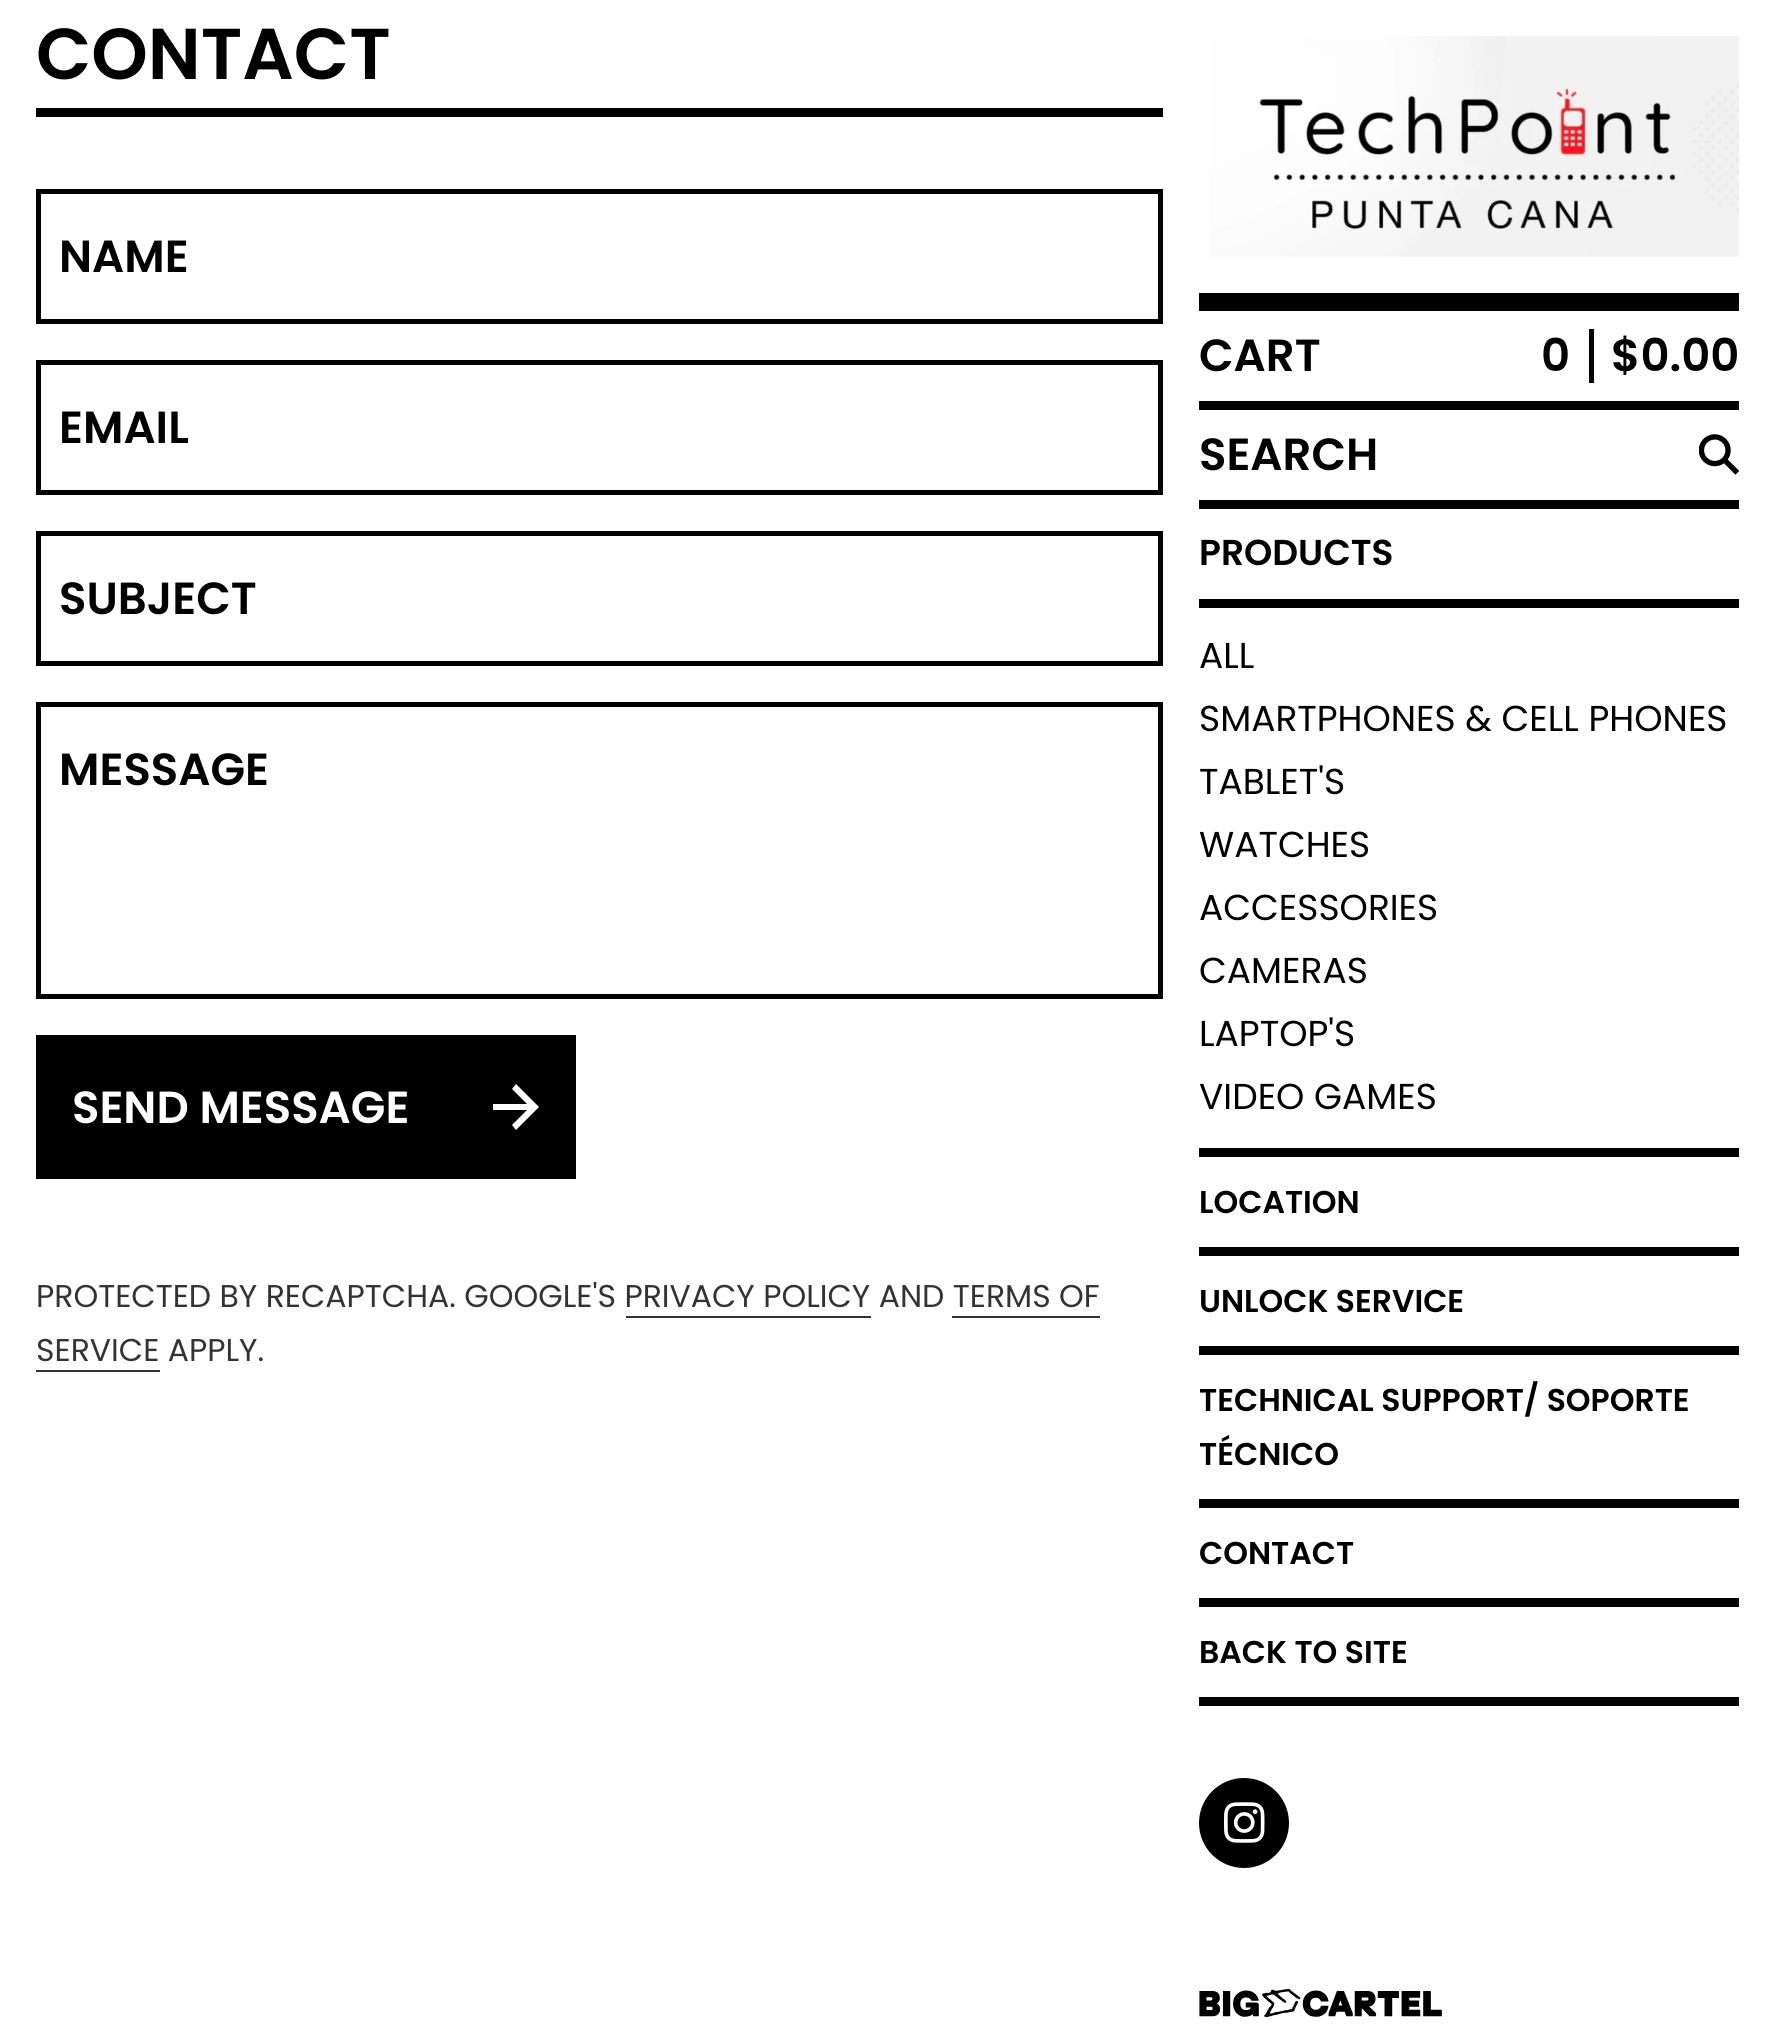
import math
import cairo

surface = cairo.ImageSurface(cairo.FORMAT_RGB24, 1775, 2039)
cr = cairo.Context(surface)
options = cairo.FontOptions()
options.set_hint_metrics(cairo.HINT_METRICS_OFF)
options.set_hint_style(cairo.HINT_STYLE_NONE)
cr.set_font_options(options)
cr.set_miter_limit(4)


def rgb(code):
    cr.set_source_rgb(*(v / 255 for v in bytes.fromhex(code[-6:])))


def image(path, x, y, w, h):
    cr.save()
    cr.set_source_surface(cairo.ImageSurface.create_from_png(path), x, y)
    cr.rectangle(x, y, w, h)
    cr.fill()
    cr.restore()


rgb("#ffffff")
cr.paint()
rgb("#000000")
cr.rectangle(36, 108, 1127, 9)
cr.fill()
cr.rectangle(38.5, 191.5, 1122, 130)
cr.set_line_width(5)
cr.stroke()
cr.rectangle(38.5, 362.5, 1122, 130)
cr.stroke()
cr.rectangle(38.5, 533.5, 1122, 130)
cr.stroke()
cr.rectangle(38.5, 704.5, 1122, 292)
cr.stroke()
cr.rectangle(36, 1035, 540, 144)
cr.fill()
rgb("#ffffff")
cr.set_fill_rule(cairo.FILL_RULE_EVEN_ODD)
cr.new_path()
cr.move_to(516, 1084)
cr.line_to(539, 1107)
cr.line_to(516, 1130)
cr.line_to(512, 1125)
cr.line_to(527, 1110)
cr.line_to(493, 1110)
cr.line_to(493, 1104)
cr.line_to(527, 1104)
cr.line_to(512, 1089)
cr.close_path()
cr.fill()
for x, y, w, h, color in [
    (626, 1316, 245, 2, "#333333"),
    (952, 1316, 148, 2, "#333333"),
    (36, 1370, 124, 2, "#333333"),
    (1199, 293, 540, 18, "#000000"),
]:
    rgb(color)
    cr.rectangle(x, y, w, h)
    cr.fill()
image("img/1.png", 1210, 36, 530, 221)
for x, y, w, h, color in [
    (1199, 401, 540, 9, "#000000"),
    (1589, 329, 5, 54, "#000000"),
    (1199, 500, 540, 9, "#000000"),
]:
    rgb(color)
    cr.rectangle(x, y, w, h)
    cr.fill()
image("img/2.png", 1699, 434, 40, 41)
for x, y, w, h, color in [
    (1199, 1148, 540, 9, "#000000"),
    (1199, 599, 540, 9, "#000000"),
    (1199, 1697, 540, 9, "#000000"),
    (1199, 1247, 540, 9, "#000000"),
    (1199, 1346, 540, 9, "#000000"),
    (1199, 1499, 540, 9, "#000000"),
    (1199, 1598, 540, 9, "#000000"),
]:
    rgb(color)
    cr.rectangle(x, y, w, h)
    cr.fill()
cr.arc(1244, 1823, 45, 0, 2 * math.pi)
cr.fill()
image("img/3.png", 1224, 1802, 41, 41)
image("img/4.png", 1199, 1989, 243, 29)
cr.select_font_face("Poppins SemiBold")
cr.set_font_size(72)
cr.move_to(36, 79)
cr.show_text("CONTACT")
cr.set_font_size(45)
for x, y, s in [
    (59, 272, "NAME"),
    (59, 443, "EMAIL"),
    (59, 614, "SUBJECT"),
    (59, 785, "MESSAGE"),
]:
    cr.move_to(x, y)
    cr.show_text(s)
rgb("#ffffff")
cr.move_to(72, 1123)
cr.show_text("SEND MESSAGE")
cr.select_font_face("Poppins")
cr.set_font_size(31.5)
rgb("#333333")
cr.move_to(36, 1307)
cr.show_text("PROTECTED BY RECAPTCHA. GOOGLE'S PRIVACY POLICY AND TERMS OF")
cr.move_to(36, 1361)
cr.show_text("SERVICE APPLY.")
cr.select_font_face("Poppins SemiBold")
cr.set_font_size(45)
rgb("#000000")
for x, y, s in [
    (1199, 371, "CART"),
    (1541, 371, "0"),
    (1611, 371, "$0.00"),
    (1199, 470, "SEARCH"),
]:
    cr.move_to(x, y)
    cr.show_text(s)
cr.set_font_size(36)
cr.move_to(1199, 565)
cr.show_text("PRODUCTS")
cr.select_font_face("Poppins")
for x, y, s in [
    (1199, 668, "ALL"),
    (1199, 731, "SMARTPHONES & CELL PHONES"),
    (1199, 794, "TABLET'S"),
    (1199, 857, "WATCHES"),
    (1199, 920, "ACCESSORIES"),
    (1199, 983, "CAMERAS"),
    (1199, 1046, "LAPTOP'S"),
    (1199, 1109, "VIDEO GAMES"),
]:
    cr.move_to(x, y)
    cr.show_text(s)
cr.select_font_face("Poppins SemiBold")
cr.set_font_size(31.5)
for x, y, s in [
    (1199, 1213, "LOCATION"),
    (1199, 1312, "UNLOCK SERVICE"),
    (1199, 1411, "TECHNICAL SUPPORT/ SOPORTE"),
    (1199, 1465, "TÉCNICO"),
    (1199, 1564, "CONTACT"),
    (1199, 1663, "BACK TO SITE"),
]:
    cr.move_to(x, y)
    cr.show_text(s)
surface.write_to_png("page.png")
